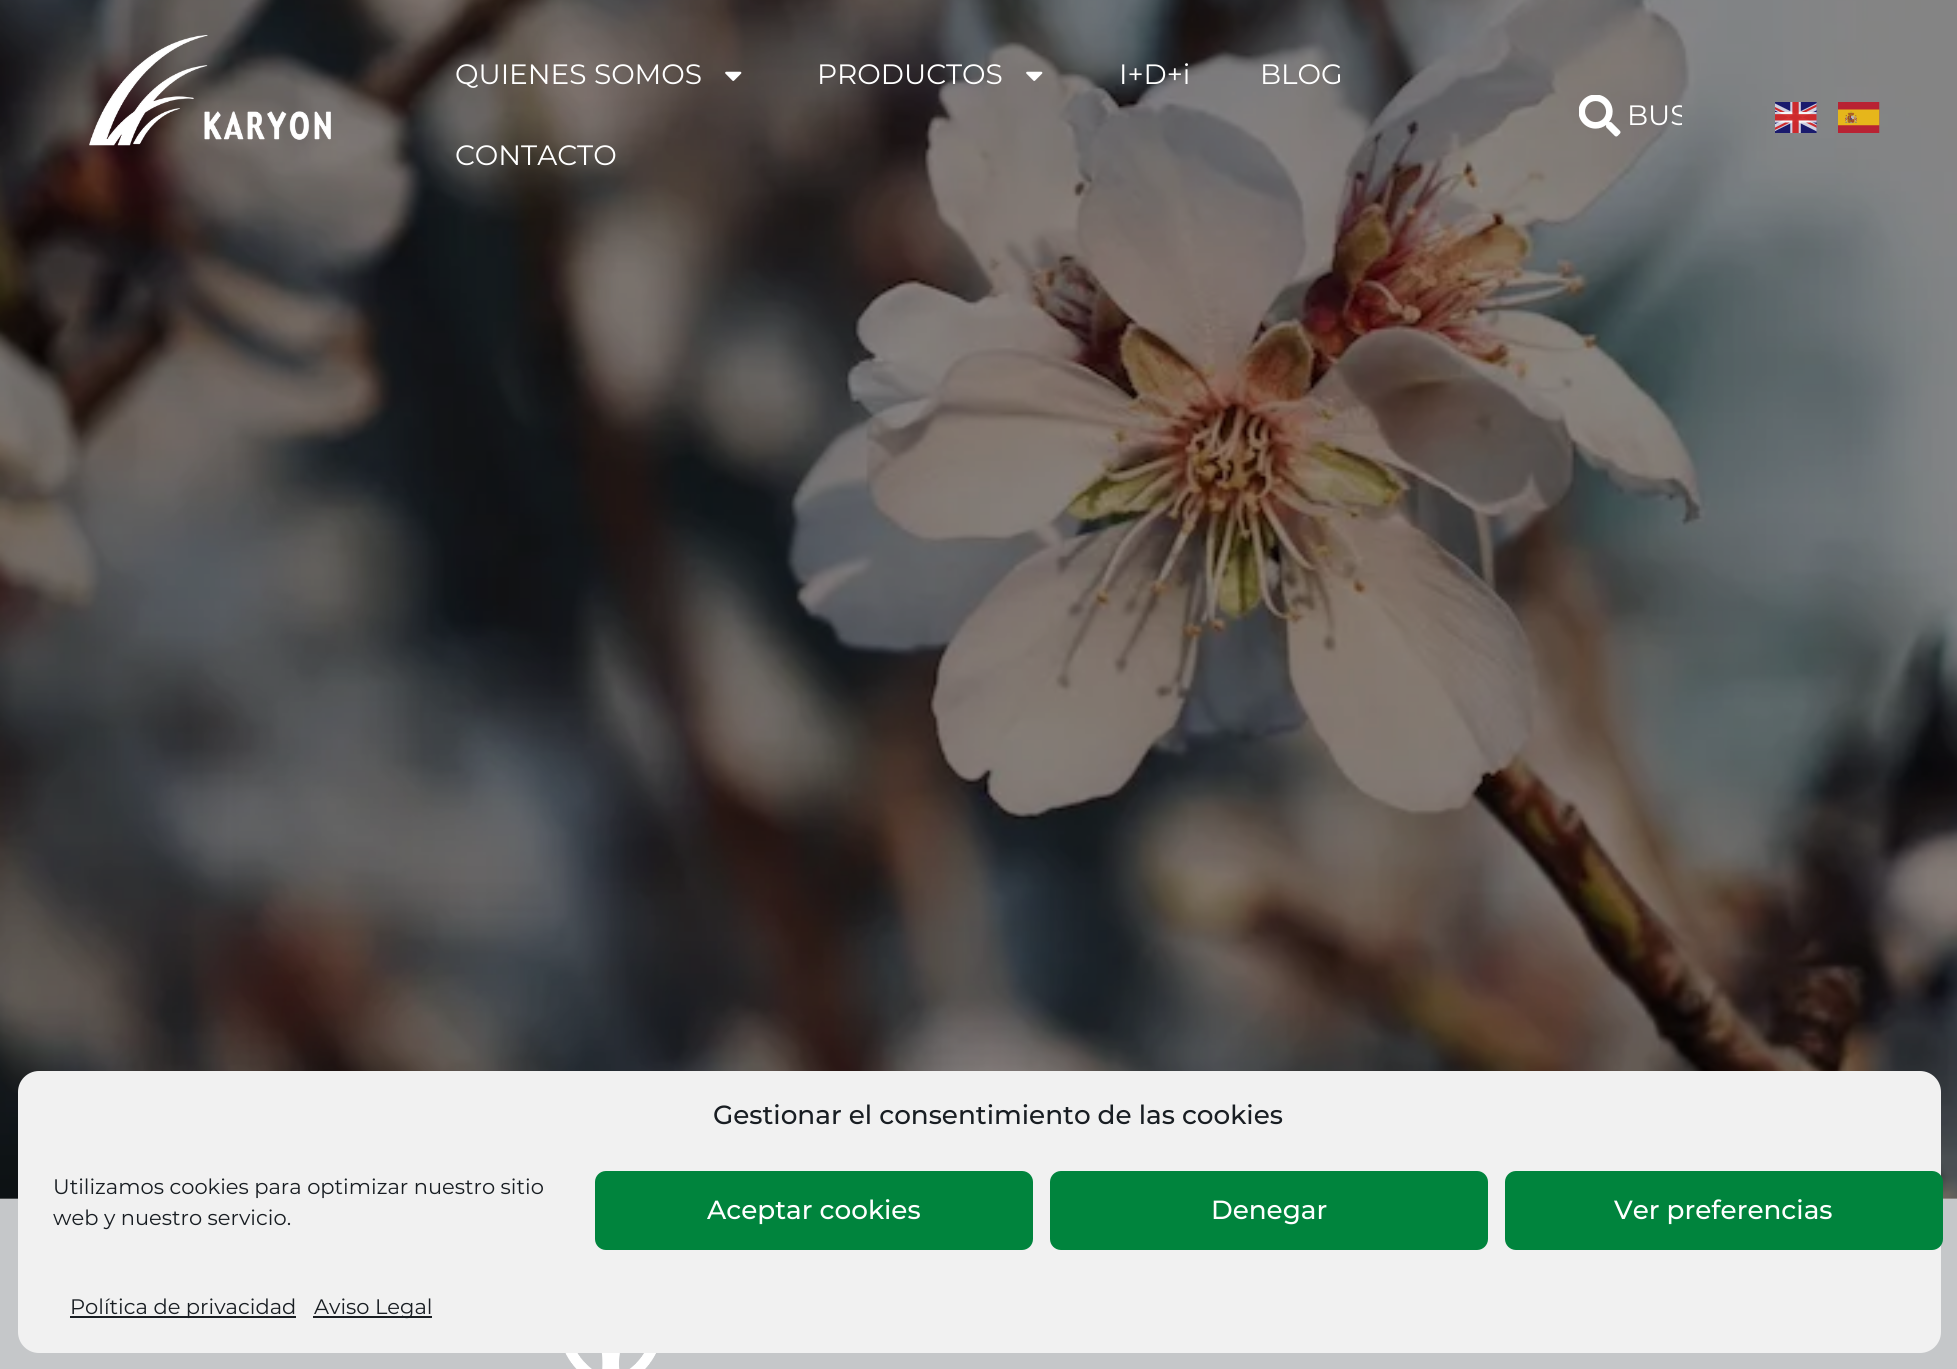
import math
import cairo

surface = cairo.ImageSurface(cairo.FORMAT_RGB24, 1957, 1369)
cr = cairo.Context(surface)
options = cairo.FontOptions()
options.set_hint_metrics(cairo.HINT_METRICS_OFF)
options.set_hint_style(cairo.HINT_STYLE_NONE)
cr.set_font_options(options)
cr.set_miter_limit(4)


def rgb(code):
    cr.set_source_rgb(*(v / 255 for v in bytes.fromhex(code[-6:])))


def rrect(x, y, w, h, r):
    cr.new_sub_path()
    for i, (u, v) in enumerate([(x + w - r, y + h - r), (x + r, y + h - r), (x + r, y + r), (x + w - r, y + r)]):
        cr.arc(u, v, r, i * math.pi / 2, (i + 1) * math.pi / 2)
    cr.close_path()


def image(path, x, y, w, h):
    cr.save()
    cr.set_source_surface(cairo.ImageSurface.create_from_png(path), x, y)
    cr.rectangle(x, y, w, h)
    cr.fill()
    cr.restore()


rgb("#ffffff")
cr.paint()
image("img/1.png", 0, 0, 1957, 1199)
rgb("#c5c7c9")
cr.rectangle(0, 1199, 1957, 170)
cr.fill()
image("img/2.png", 565, 1353, 91, 16)
image("img/3.png", 89, 35, 242, 111)
image("img/4.png", 725, 71, 17, 10)
image("img/5.png", 1026, 71, 17, 10)
image("img/6.png", 1579, 95, 42, 42)
image("img/7.png", 1775, 102, 42, 31)
image("img/8.png", 1838, 102, 42, 31)
rgb("#f1f1f1")
rrect(18, 1071, 1923, 282, 21)
cr.fill()
rgb("#00843d")
rrect(596, 1172, 436, 77, 10)
cr.fill_preserve()
cr.stroke()
rrect(1051, 1172, 436, 77, 10)
cr.fill_preserve()
cr.stroke()
rrect(1506, 1172, 436, 77, 10)
cr.fill_preserve()
cr.stroke()
rgb("#191e23")
cr.rectangle(70, 1316, 226, 2)
cr.fill()
cr.rectangle(313, 1316, 119, 2)
cr.fill()
cr.select_font_face("Montserrat")
cr.set_font_size(28)
rgb("#ffffff")
for x, y, s in [
    (455, 84, "QUIENES SOMOS"),
    (817, 84, "PRODUCTOS"),
    (1119, 84, "I+D+i"),
    (1260, 84, "BLOG"),
    (455, 165, "CONTACTO"),
]:
    cr.move_to(x, y)
    cr.show_text(s)
cr.save()
cr.rectangle(1628, 100, 54, 33)
cr.clip()
cr.move_to(1627, 125)
cr.show_text("BUS")
cr.restore()
cr.select_font_face("Montserrat Medium")
cr.set_font_size(26.25)
rgb("#191e23")
cr.move_to(713, 1124)
cr.show_text("Gestionar el consentimiento de las cookies")
cr.select_font_face("Montserrat")
cr.set_font_size(21)
cr.move_to(53, 1194)
cr.show_text("Utilizamos cookies para optimizar nuestro sitio")
cr.move_to(53, 1225)
cr.show_text("web y nuestro servicio.")
cr.select_font_face("Montserrat Medium")
cr.set_font_size(26.25)
rgb("#ffffff")
for x, y, s in [
    (707, 1219, "Aceptar cookies"),
    (1211, 1219, "Denegar"),
    (1614, 1219, "Ver preferencias"),
]:
    cr.move_to(x, y)
    cr.show_text(s)
cr.select_font_face("Montserrat")
cr.set_font_size(21)
rgb("#191e23")
cr.move_to(70, 1314)
cr.show_text("Política de privacidad")
cr.move_to(314, 1314)
cr.show_text("Aviso Legal")
surface.write_to_png("page.png")
